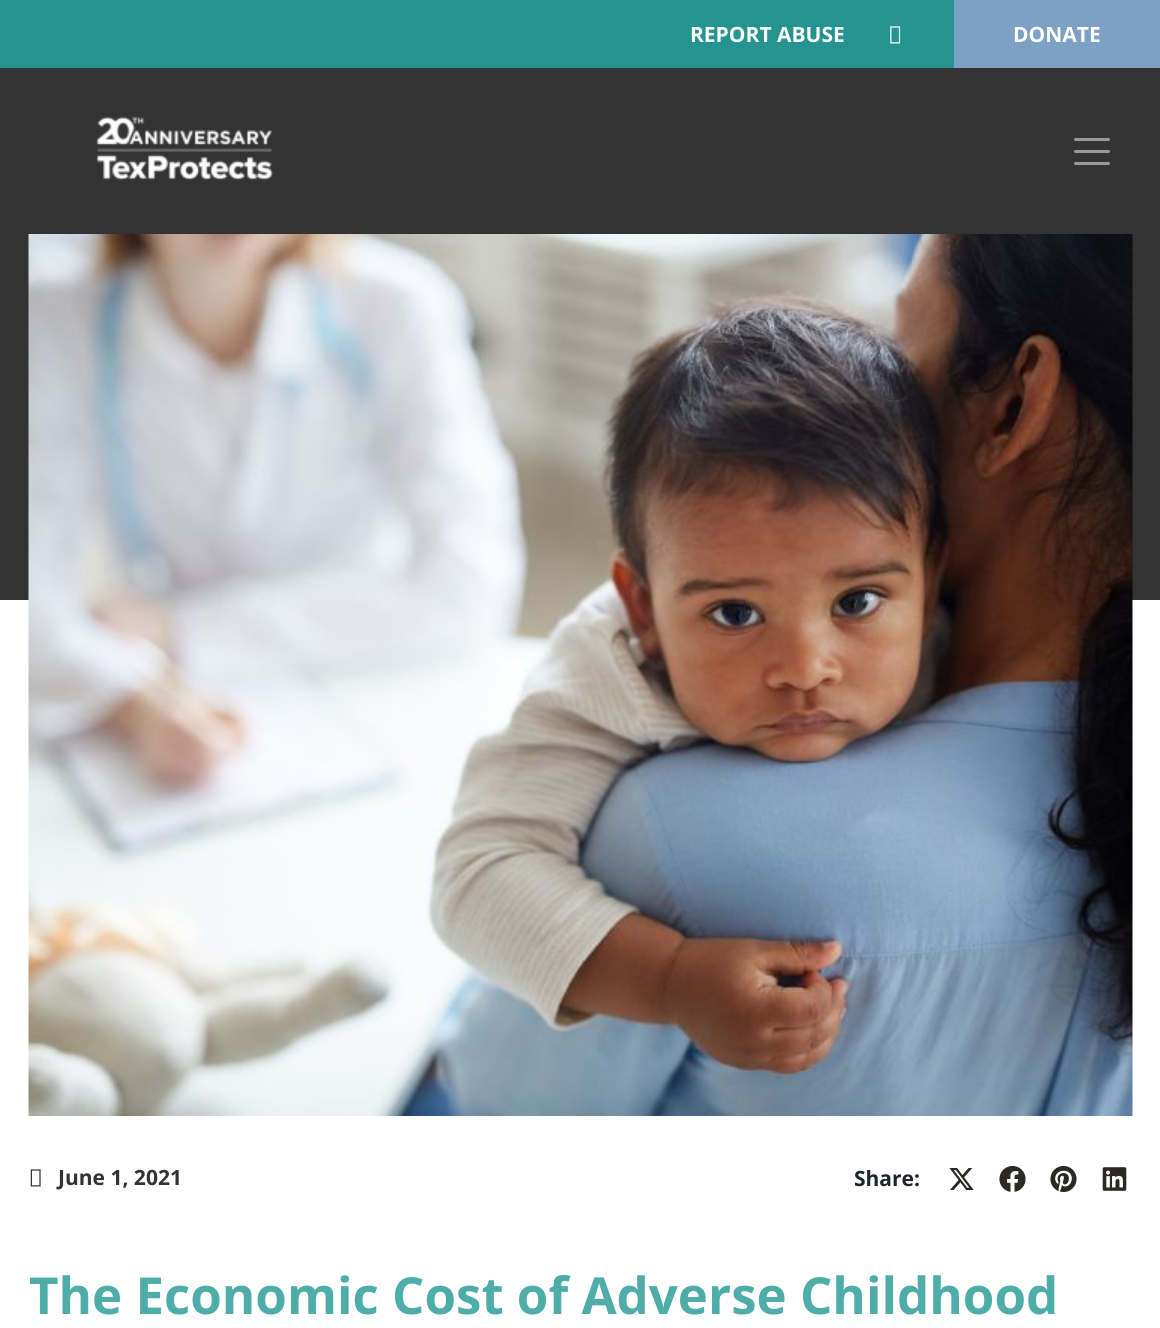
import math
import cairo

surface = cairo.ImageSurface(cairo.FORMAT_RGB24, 1160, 1328)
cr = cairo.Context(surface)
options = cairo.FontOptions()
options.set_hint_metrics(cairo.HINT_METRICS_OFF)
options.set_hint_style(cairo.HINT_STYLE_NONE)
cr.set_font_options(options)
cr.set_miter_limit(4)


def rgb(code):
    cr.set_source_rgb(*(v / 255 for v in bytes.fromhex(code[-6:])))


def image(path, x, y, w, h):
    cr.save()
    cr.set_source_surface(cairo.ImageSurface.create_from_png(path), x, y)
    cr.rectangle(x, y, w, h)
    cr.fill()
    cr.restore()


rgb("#ffffff")
cr.paint()
rgb("#259490")
cr.rectangle(0, 0, 954, 68)
cr.fill()
image("img/1.png", 890, 26, 11, 18)
rgb("#7da1c4")
cr.rectangle(954, 0, 206, 68)
cr.fill()
rgb("#333333")
cr.rectangle(0, 68, 1160, 532)
cr.fill()
image("img/2.png", 96, 116, 178, 65)
cr.new_path()
cr.move_to(1075.5, 139.5)
cr.line_to(1108.5, 139.5)
cr.move_to(1075.5, 151.5)
cr.line_to(1108.5, 151.5)
cr.move_to(1075.5, 163.5)
cr.line_to(1108.5, 163.5)
rgb("#999999")
cr.set_line_width(3)
cr.set_line_cap(cairo.LINE_CAP_ROUND)
cr.stroke()
image("img/3.png", 28, 234, 1105, 882)
image("img/4.png", 30, 1169, 11, 18)
image("img/5.png", 949, 1168, 25, 22)
image("img/6.png", 999, 1166, 27, 26)
image("img/7.png", 1050, 1166, 27, 27)
image("img/8.png", 1102, 1167, 25, 24)
cr.select_font_face("Open Sans", cairo.FONT_SLANT_NORMAL, cairo.FONT_WEIGHT_BOLD)
cr.set_font_size(21)
rgb("#ffffff")
cr.move_to(690, 42)
cr.show_text("REPORT ABUSE")
cr.move_to(1013, 42)
cr.show_text("DONATE")
rgb("#333333")
cr.move_to(58, 1185)
cr.show_text("June 1, 2021")
rgb("#212529")
cr.move_to(854, 1186)
cr.show_text("Share:")
cr.set_font_size(51)
rgb("#4eaca9")
cr.move_to(29, 1314)
cr.show_text("The Economic Cost of Adverse Childhood")
surface.write_to_png("page.png")
